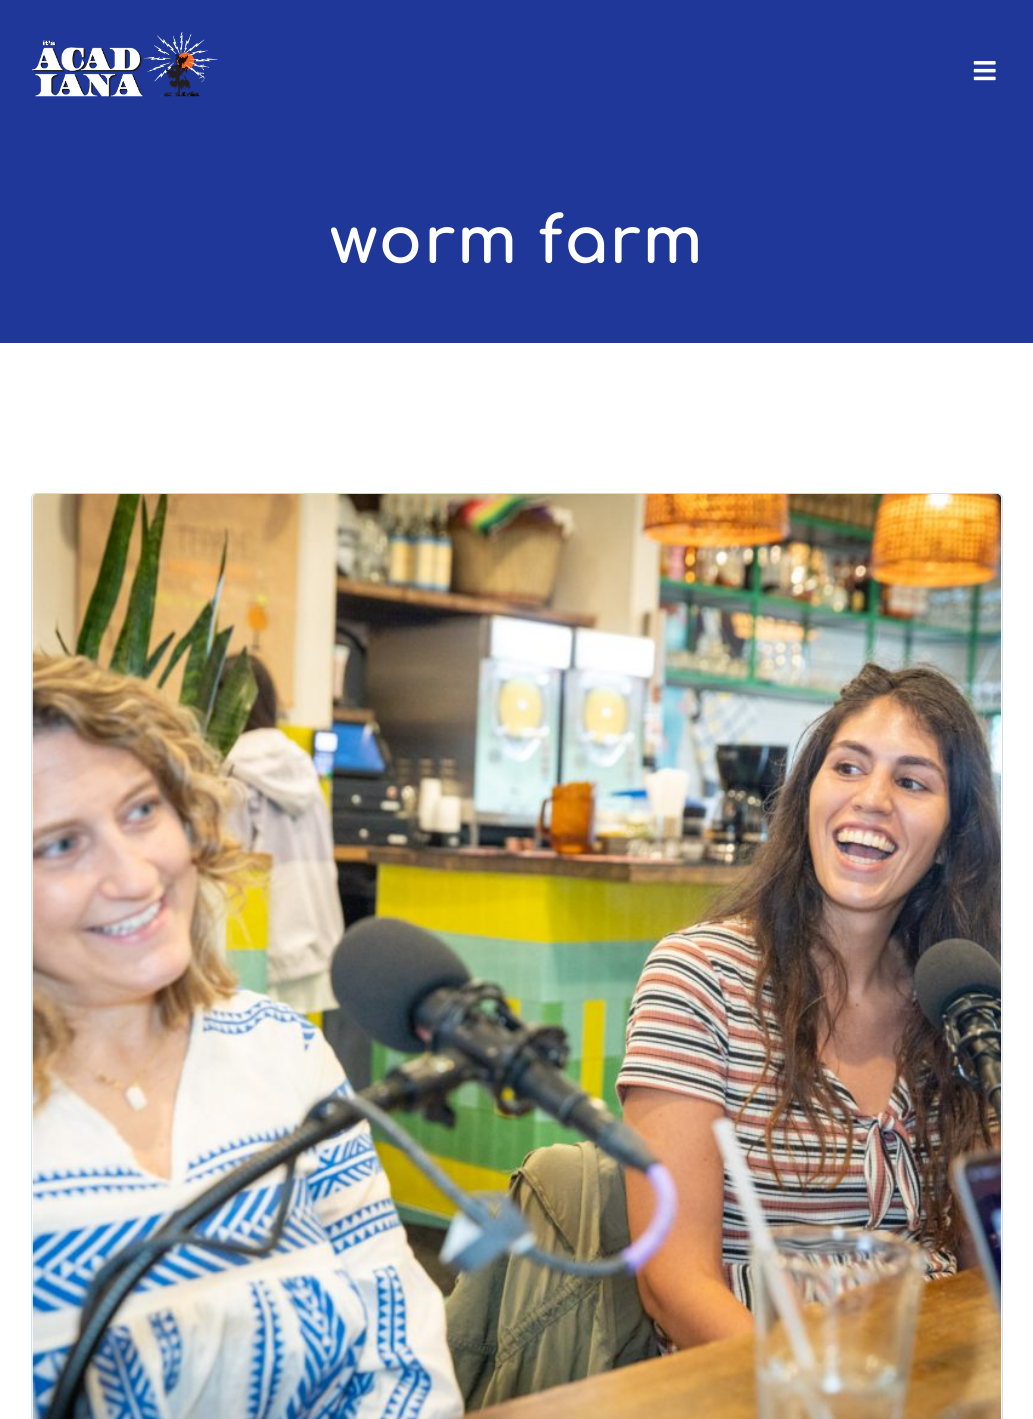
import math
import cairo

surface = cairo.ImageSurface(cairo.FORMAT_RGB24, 1033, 1419)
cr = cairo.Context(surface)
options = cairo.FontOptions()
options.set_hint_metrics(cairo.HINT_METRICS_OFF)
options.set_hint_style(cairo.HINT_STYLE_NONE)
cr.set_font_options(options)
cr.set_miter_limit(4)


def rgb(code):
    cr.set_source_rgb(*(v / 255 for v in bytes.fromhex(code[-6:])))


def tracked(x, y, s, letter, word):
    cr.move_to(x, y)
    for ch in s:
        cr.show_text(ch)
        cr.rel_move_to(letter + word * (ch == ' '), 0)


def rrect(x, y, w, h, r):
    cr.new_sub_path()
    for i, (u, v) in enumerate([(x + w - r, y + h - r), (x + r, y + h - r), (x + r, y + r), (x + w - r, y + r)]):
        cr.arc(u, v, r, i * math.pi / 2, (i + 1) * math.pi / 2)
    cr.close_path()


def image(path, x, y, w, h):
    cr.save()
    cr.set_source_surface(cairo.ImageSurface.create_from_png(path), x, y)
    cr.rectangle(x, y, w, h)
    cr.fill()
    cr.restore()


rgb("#ffffff")
cr.paint()
rgb("#1e3799")
cr.rectangle(0, 0, 1033, 343)
cr.fill()
image("img/1.png", 32, 32, 186, 65)
image("img/2.png", 973, 61, 23, 20)
rrect(31.5, 493.5, 971, 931, 4.5)
rgb("#d3ddec")
cr.set_line_width(1)
cr.stroke()
image("img/3.png", 32, 493, 970, 926)
cr.select_font_face("Comfortaa", cairo.FONT_SLANT_NORMAL, cairo.FONT_WEIGHT_BOLD)
cr.set_font_size(65)
rgb("#ffffff")
tracked(330, 263, "worm farm", 1.25, 0)
surface.write_to_png("page.png")
